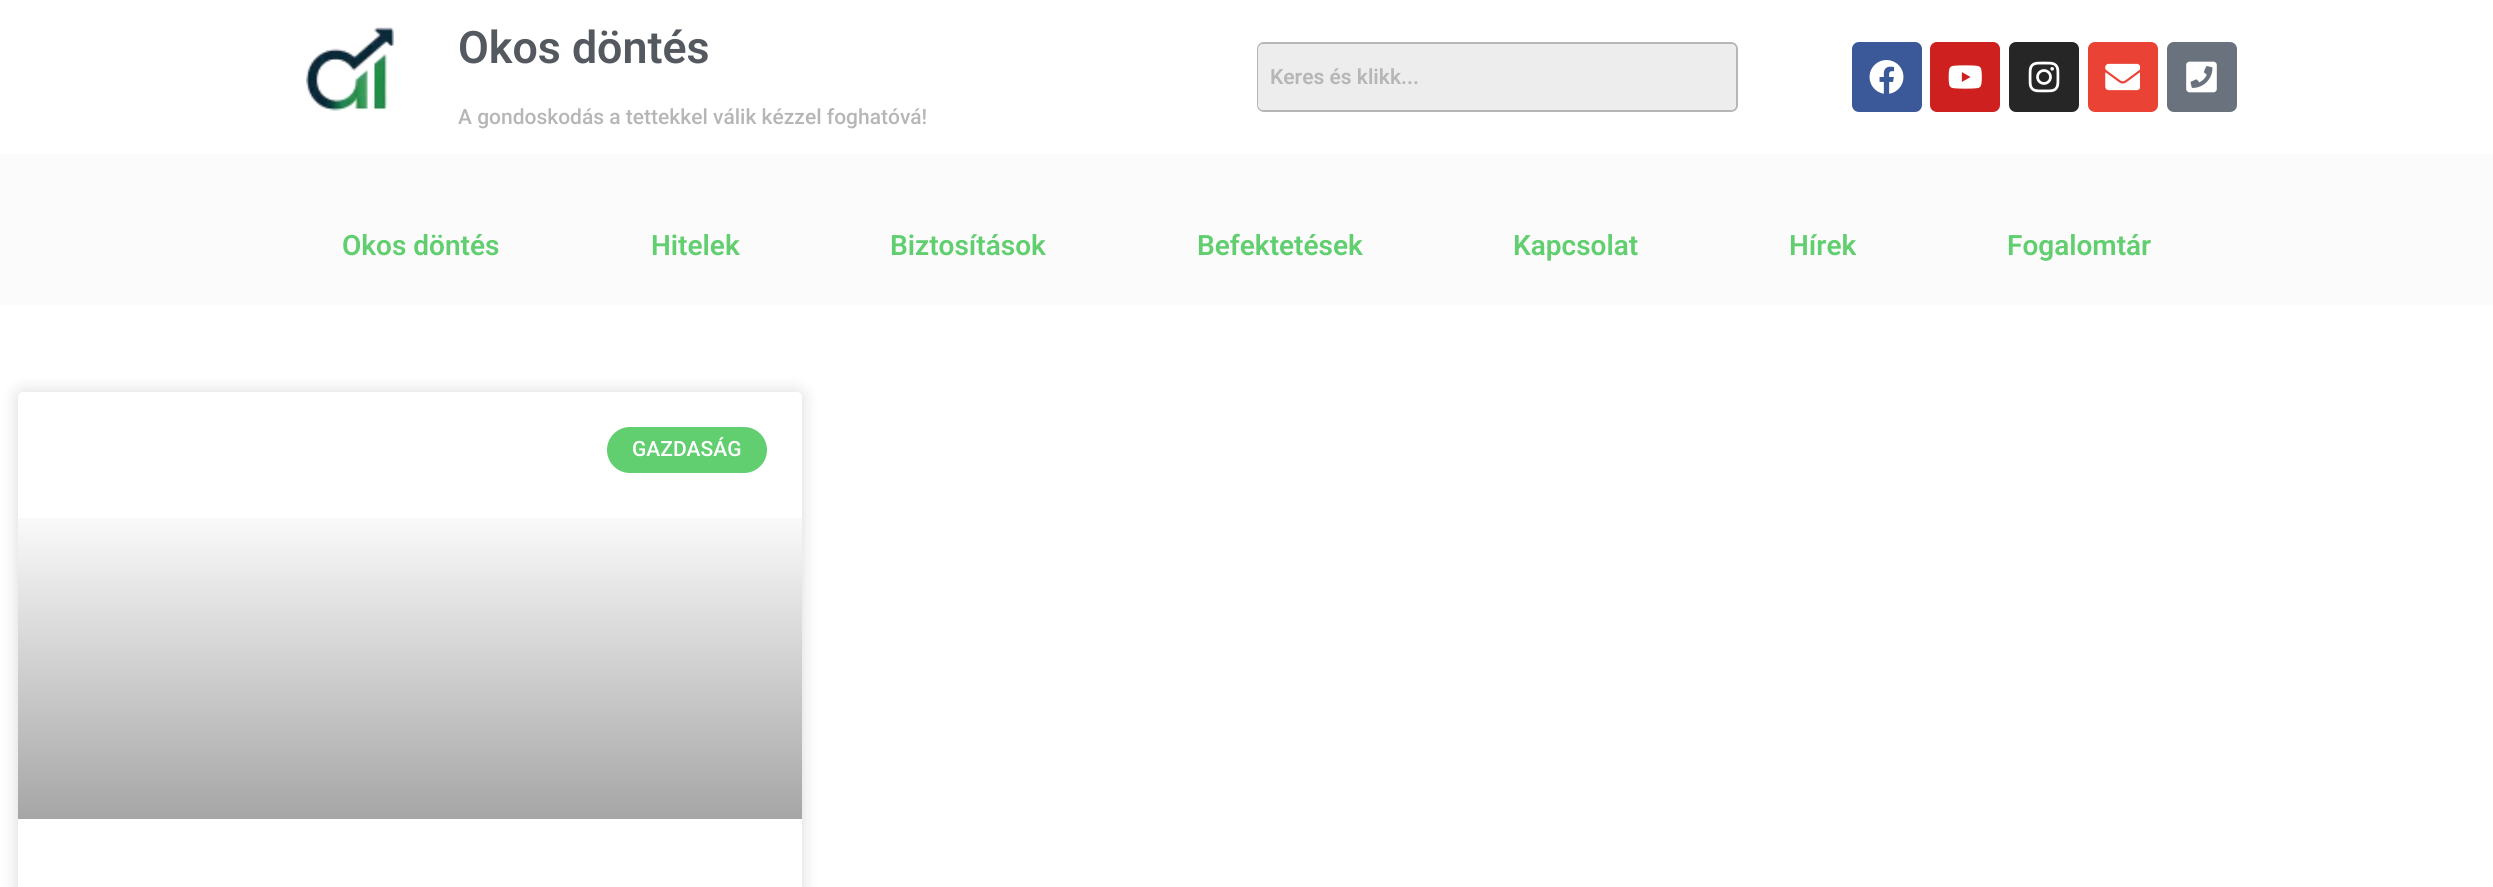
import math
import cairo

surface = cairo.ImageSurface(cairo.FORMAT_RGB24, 2493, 887)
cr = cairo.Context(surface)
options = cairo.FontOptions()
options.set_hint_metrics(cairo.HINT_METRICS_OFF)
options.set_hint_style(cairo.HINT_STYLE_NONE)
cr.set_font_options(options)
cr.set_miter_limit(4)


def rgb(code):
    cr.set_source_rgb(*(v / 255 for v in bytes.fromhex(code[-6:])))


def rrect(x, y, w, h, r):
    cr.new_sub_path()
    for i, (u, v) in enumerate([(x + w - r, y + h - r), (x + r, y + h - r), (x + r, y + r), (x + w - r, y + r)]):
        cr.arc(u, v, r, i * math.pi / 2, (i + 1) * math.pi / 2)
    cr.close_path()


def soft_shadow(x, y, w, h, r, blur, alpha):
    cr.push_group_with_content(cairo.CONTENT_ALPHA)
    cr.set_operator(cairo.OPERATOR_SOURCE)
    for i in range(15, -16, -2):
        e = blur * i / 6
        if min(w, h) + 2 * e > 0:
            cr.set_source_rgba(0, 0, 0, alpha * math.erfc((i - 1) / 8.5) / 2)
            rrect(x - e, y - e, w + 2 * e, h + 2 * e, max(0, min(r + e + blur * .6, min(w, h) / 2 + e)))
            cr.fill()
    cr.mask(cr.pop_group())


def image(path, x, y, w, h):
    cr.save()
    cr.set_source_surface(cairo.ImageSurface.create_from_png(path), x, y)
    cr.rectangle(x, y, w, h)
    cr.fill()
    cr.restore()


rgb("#ffffff")
cr.paint()
image("img/1.png", 306, 27, 88, 84)
rrect(1258, 43, 479, 68, 6)
rgb("#b6b6b6")
cr.stroke()
rgb("#ededed")
rrect(1258, 44, 478, 66, 5)
cr.fill()
rgb("#3b5998")
rrect(1852, 42, 70, 70, 7)
cr.fill()
image("img/2.png", 1869, 60, 35, 34)
rgb("#cd201f")
rrect(1930, 42, 70, 70, 7)
cr.fill()
image("img/3.png", 1948, 65, 34, 24)
rgb("#262626")
rrect(2009, 42, 70, 70, 7)
cr.fill()
image("img/4.png", 2028, 61, 32, 32)
rgb("#ea4335")
rrect(2088, 42, 70, 70, 7)
cr.fill()
image("img/5.png", 2105, 63, 35, 28)
rgb("#69727d")
rrect(2167, 42, 70, 70, 7)
cr.fill()
image("img/6.png", 2186, 61, 31, 32)
rgb("#fbfbfb")
cr.rectangle(0, 154, 2493, 151)
cr.fill()
rgb("#000000")
soft_shadow(18, 392, 784, 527, 5, 9, 0.15)
rgb("#ffffff")
rrect(18, 392, 784, 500, 5)
cr.fill()
rgb("#61ce70")
rrect(607, 427, 160, 46, 23)
cr.fill()
gradient = cairo.LinearGradient(410, 819, 410, 392)
gradient.add_color_stop_rgba(0, 0, 0, 0, 0.35)
gradient.add_color_stop_rgba(0.75, 0, 0, 0, 0)
cr.set_source(gradient)
cr.rectangle(18, 518, 784, 301)
cr.fill()
cr.select_font_face("Roboto SemiBold")
cr.set_font_size(44.75)
rgb("#54595f")
cr.move_to(458, 63)
cr.show_text("Okos döntés")
cr.select_font_face("Roboto Medium")
cr.set_font_size(21)
rgb("#b6b6b6")
cr.move_to(458, 124)
cr.show_text("A gondoskodás a tettekkel válik kézzel foghatóvá!")
cr.select_font_face("Roboto SemiBold")
cr.move_to(1270, 84)
cr.show_text("Keres és klikk...")
cr.set_font_size(28)
rgb("#61ce70")
for x, y, s in [
    (342, 255, "Okos döntés"),
    (651, 255, "Hitelek"),
    (890, 255, "Biztosítások"),
    (1197, 255, "Befektetések"),
    (1513, 255, "Kapcsolat"),
    (1789, 255, "Hírek"),
    (2007, 255, "Fogalomtár"),
]:
    cr.move_to(x, y)
    cr.show_text(s)
cr.select_font_face("Roboto Medium")
cr.set_font_size(21)
rgb("#ffffff")
cr.move_to(632, 456)
cr.show_text("GAZDASÁG")
surface.write_to_png("page.png")
